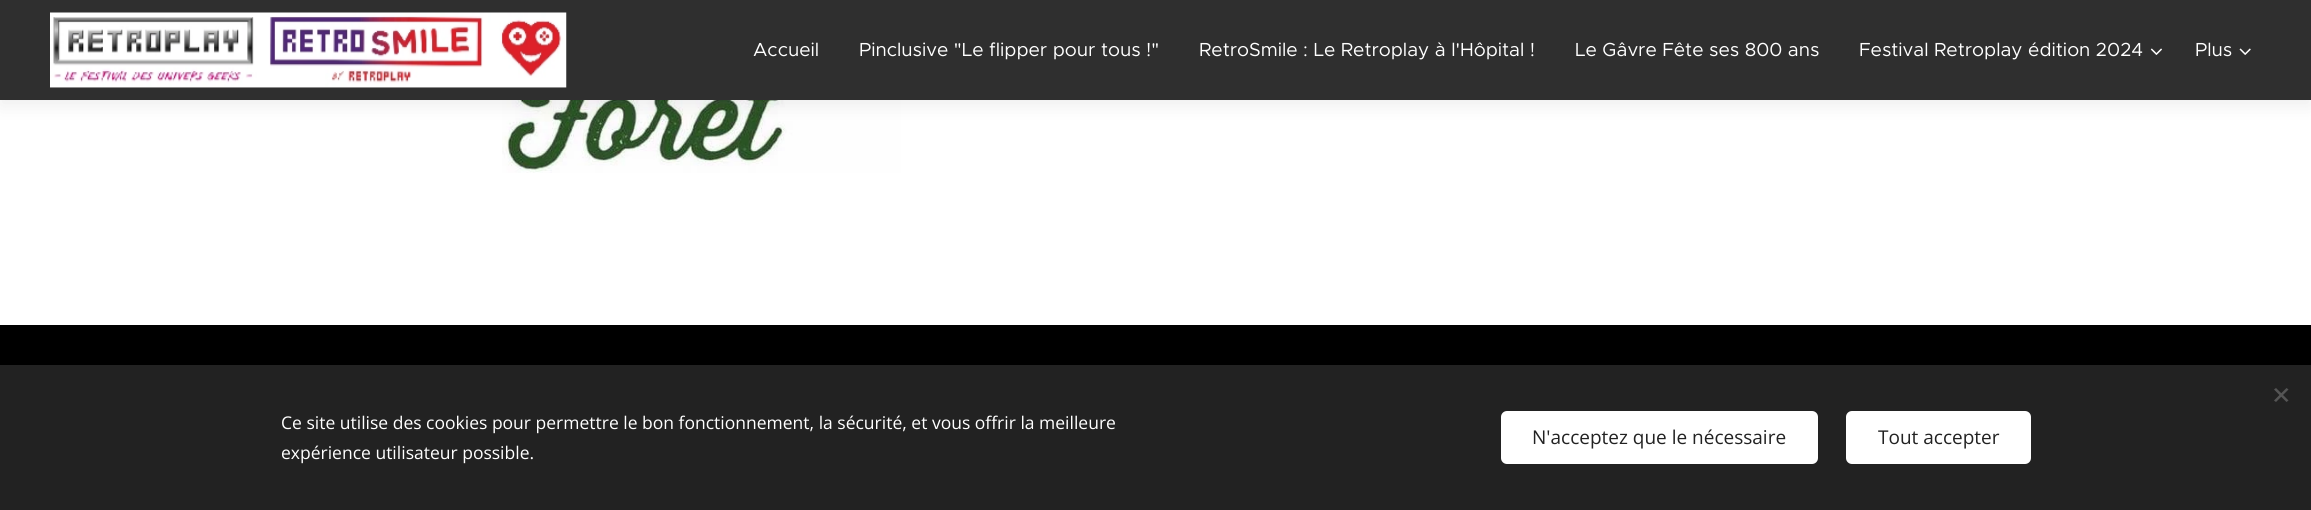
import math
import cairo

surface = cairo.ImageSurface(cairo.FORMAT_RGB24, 2311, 510)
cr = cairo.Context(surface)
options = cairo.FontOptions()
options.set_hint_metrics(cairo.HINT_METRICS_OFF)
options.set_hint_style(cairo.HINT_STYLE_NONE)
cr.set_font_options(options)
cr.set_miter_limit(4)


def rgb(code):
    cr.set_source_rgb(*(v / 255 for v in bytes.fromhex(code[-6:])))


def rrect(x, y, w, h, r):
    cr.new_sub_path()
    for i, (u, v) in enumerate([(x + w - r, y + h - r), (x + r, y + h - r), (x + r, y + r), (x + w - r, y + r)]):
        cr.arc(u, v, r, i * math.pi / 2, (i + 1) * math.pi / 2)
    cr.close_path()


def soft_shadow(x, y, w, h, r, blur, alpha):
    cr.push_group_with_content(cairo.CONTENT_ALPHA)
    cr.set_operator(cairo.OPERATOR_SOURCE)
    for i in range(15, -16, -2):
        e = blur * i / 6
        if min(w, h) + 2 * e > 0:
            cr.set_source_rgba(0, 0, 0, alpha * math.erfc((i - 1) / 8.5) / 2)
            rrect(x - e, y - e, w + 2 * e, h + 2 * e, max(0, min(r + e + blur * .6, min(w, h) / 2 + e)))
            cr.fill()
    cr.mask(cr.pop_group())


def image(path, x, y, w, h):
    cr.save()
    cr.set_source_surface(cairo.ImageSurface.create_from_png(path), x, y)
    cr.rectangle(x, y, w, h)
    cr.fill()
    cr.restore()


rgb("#ffffff")
cr.paint()
image("img/4.png", 502, 100, 399, 73)
rgb("#000000")
soft_shadow(0, 6, 2311, 100, 0, 9.5, 0.07)
rgb("#2f2f2f")
cr.rectangle(0, 0, 2311, 100)
cr.fill()
image("img/1.png", 50, 12, 517, 76)
image("img/2.png", 2150, 48, 12, 7)
image("img/3.png", 2239, 48, 12, 7)
rgb("#000000")
cr.rectangle(0, 325, 2311, 40)
cr.fill()
rgb("#222222")
cr.rectangle(0, 365, 2311, 145)
cr.fill()
rgb("#555555")
cr.new_path()
cr.move_to(2274, 400.5)
cr.line_to(2286.5, 388)
cr.line_to(2288.5, 389.5)
cr.line_to(2276, 402)
cr.close_path()
cr.fill()
cr.new_path()
cr.move_to(2276, 388)
cr.line_to(2288.5, 400.5)
cr.line_to(2286.5, 402)
cr.line_to(2274, 389.5)
cr.close_path()
cr.fill()
rgb("#ffffff")
rrect(1501, 411, 317, 53, 6)
cr.fill()
rrect(1846, 411, 185, 53, 6)
cr.fill()
cr.select_font_face("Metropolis")
cr.set_font_size(19)
for x, y, s in [
    (753, 56, "Accueil"),
    (859, 56, "Pinclusive \"Le flipper pour tous !\""),
    (1199, 56, "RetroSmile : Le Retroplay à l'Hôpital !"),
    (1575, 56, "Le Gâvre Fête ses 800 ans"),
    (1859, 56, "Festival Retroplay édition 2024"),
    (2195, 56, "Plus"),
]:
    cr.move_to(x, y)
    cr.show_text(s)
cr.select_font_face("Open Sans")
cr.set_font_size(17.5)
cr.move_to(281, 429)
cr.show_text("Ce site utilise des cookies pour permettre le bon fonctionnement, la sécurité, et vous offrir la meilleure")
cr.move_to(281, 459)
cr.show_text("expérience utilisateur possible.")
cr.set_font_size(19)
rgb("#222222")
cr.move_to(1532, 444)
cr.show_text("N'acceptez que le nécessaire")
cr.move_to(1878, 444)
cr.show_text("Tout accepter")
surface.write_to_png("page.png")
